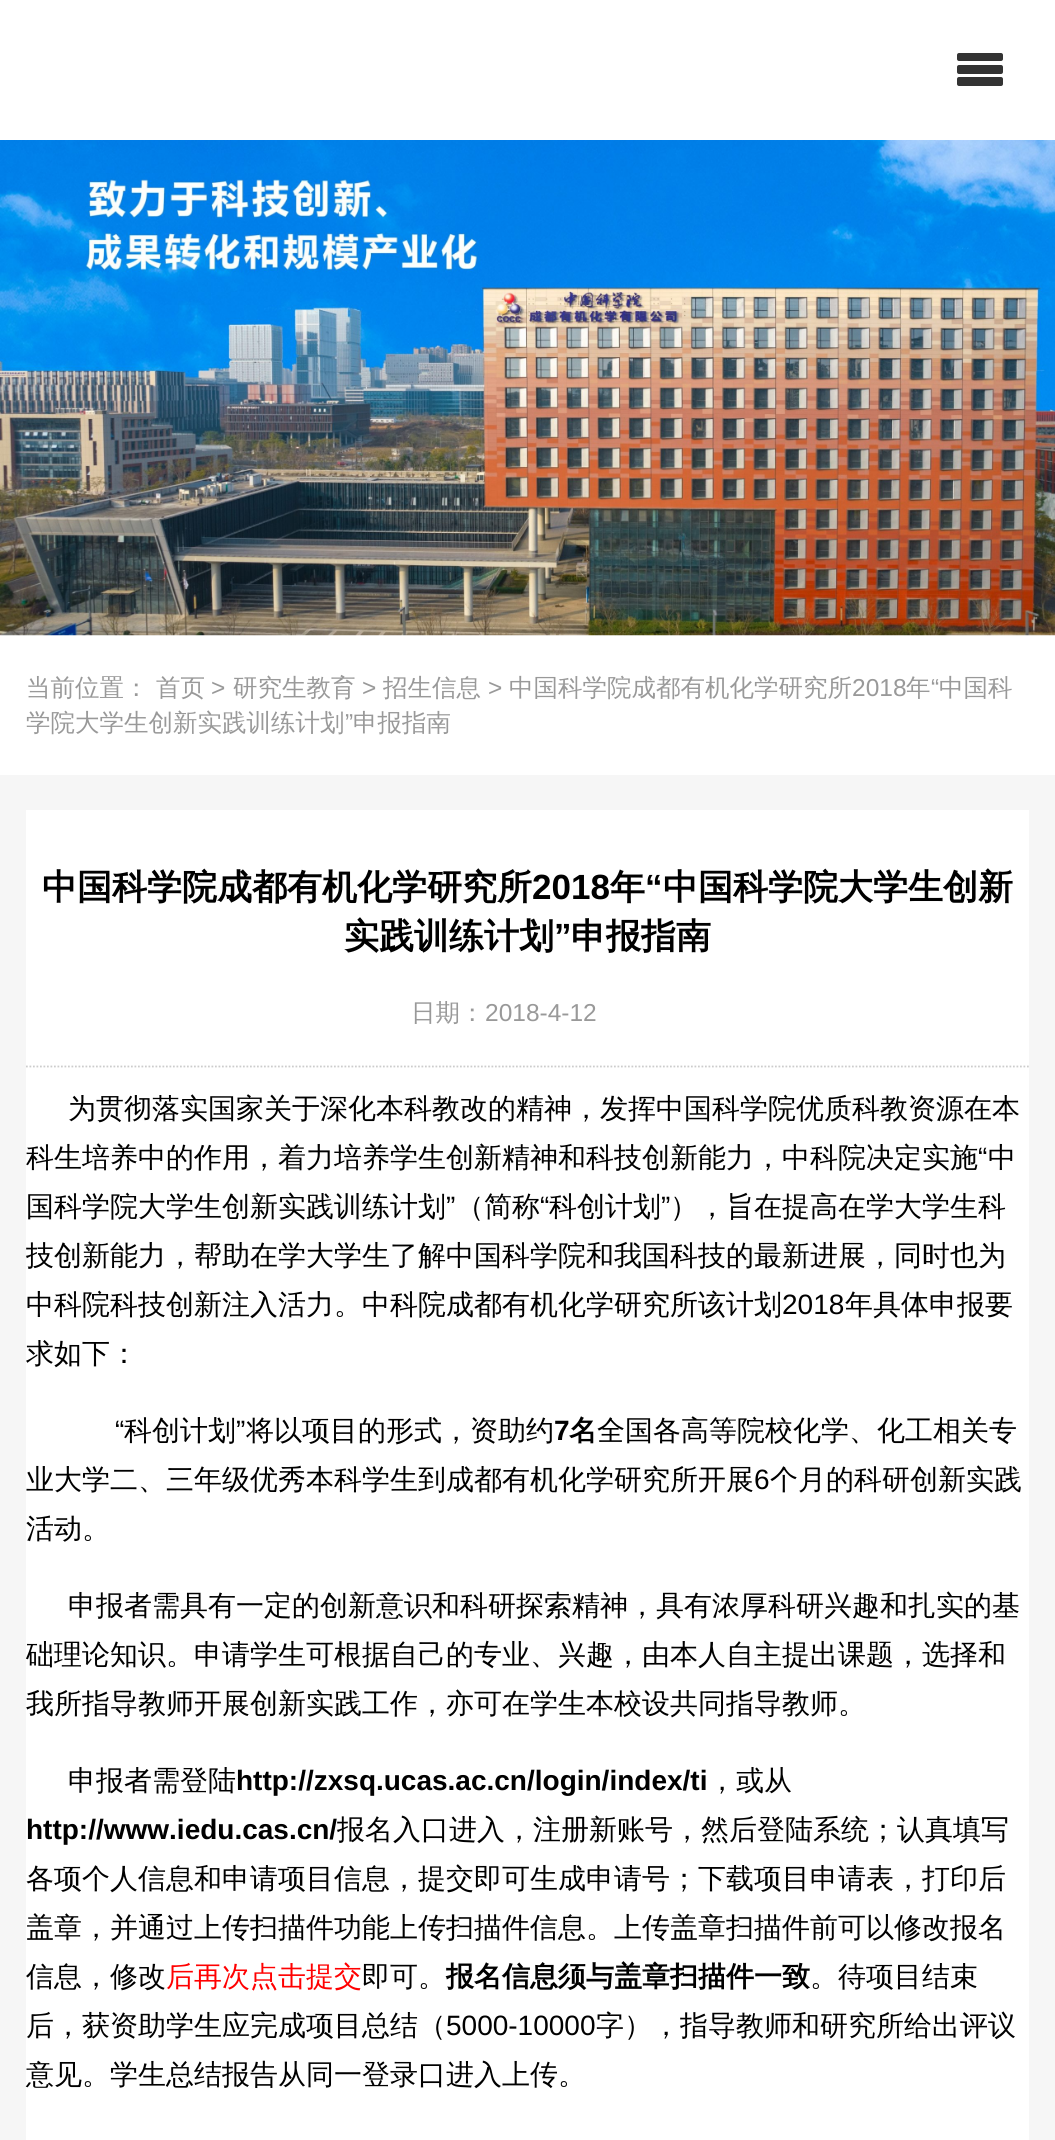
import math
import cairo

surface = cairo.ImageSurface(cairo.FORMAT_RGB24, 1055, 2140)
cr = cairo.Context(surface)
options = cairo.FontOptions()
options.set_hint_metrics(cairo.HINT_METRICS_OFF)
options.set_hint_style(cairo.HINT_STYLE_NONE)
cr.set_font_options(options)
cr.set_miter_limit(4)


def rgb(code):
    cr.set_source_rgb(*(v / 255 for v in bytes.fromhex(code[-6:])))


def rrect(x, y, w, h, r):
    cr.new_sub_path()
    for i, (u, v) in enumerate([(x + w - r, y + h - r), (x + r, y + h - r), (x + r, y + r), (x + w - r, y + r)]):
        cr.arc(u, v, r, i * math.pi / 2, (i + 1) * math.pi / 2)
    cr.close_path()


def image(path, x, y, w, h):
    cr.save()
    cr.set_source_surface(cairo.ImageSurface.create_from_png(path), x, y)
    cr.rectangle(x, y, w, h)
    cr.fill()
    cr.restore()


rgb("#ffffff")
cr.paint()
rgb("#333333")
rrect(957, 53, 46, 8, 2)
cr.fill()
rrect(957, 65, 46, 9, 2)
cr.fill()
rrect(957, 77, 46, 9, 2)
cr.fill()
image("img/1.png", 0, 140, 1055, 496)
rgb("#f6f6f6")
cr.rectangle(0, 775, 1055, 1365)
cr.fill()
rgb("#ffffff")
cr.rectangle(26, 810, 1003, 1330)
cr.fill()
cr.new_path()
cr.move_to(26, 1066.5)
cr.line_to(1029, 1066.5)
rgb("#cccccc")
cr.set_line_width(1.8)
cr.set_dash([1.75, 1.75])
cr.stroke()
cr.select_font_face("WenQuanYi Zen Hei Medium")
cr.set_font_size(24.5)
rgb("#999999")
cr.move_to(26, 696)
cr.show_text("当前位置：")
cr.move_to(156, 696)
cr.show_text("首页")
cr.select_font_face("Liberation Sans")
cr.move_to(211, 696)
cr.show_text(">")
cr.select_font_face("WenQuanYi Zen Hei Medium")
cr.move_to(233, 696)
cr.show_text("研究生教育")
cr.select_font_face("Liberation Sans")
cr.move_to(362, 696)
cr.show_text(">")
cr.select_font_face("WenQuanYi Zen Hei Medium")
cr.move_to(383, 696)
cr.show_text("招生信息")
cr.select_font_face("Liberation Sans")
cr.move_to(488, 696)
cr.show_text(">")
cr.select_font_face("WenQuanYi Zen Hei Medium")
cr.move_to(509, 696)
cr.show_text("中国科学院成都有机化学研究所")
cr.select_font_face("Liberation Sans")
cr.move_to(852, 696)
cr.show_text("2018")
cr.select_font_face("WenQuanYi Zen Hei Medium")
cr.move_to(906, 696)
cr.show_text("年")
cr.select_font_face("Liberation Sans")
cr.move_to(931, 696)
cr.show_text("“")
cr.select_font_face("WenQuanYi Zen Hei Medium")
cr.move_to(939, 696)
cr.show_text("中国科")
cr.move_to(26, 731)
cr.show_text("学院大学生创新实践训练计划")
cr.select_font_face("Liberation Sans")
cr.move_to(345, 731)
cr.show_text("”")
cr.select_font_face("WenQuanYi Zen Hei Medium")
cr.move_to(353, 731)
cr.show_text("申报指南")
cr.select_font_face("WenQuanYi Zen Hei", cairo.FONT_SLANT_NORMAL, cairo.FONT_WEIGHT_BOLD)
cr.set_font_size(35)
rgb("#000000")
cr.move_to(42, 899)
cr.show_text("中国科学院成都有机化学研究所")
cr.select_font_face("Liberation Sans", cairo.FONT_SLANT_NORMAL, cairo.FONT_WEIGHT_BOLD)
cr.move_to(532, 899)
cr.show_text("2018")
cr.select_font_face("WenQuanYi Zen Hei", cairo.FONT_SLANT_NORMAL, cairo.FONT_WEIGHT_BOLD)
cr.move_to(610, 899)
cr.show_text("年")
cr.select_font_face("Liberation Sans", cairo.FONT_SLANT_NORMAL, cairo.FONT_WEIGHT_BOLD)
cr.move_to(645, 899)
cr.show_text("“")
cr.select_font_face("WenQuanYi Zen Hei", cairo.FONT_SLANT_NORMAL, cairo.FONT_WEIGHT_BOLD)
cr.move_to(663, 899)
cr.show_text("中国科学院大学生创新")
cr.move_to(344, 948)
cr.show_text("实践训练计划")
cr.select_font_face("Liberation Sans", cairo.FONT_SLANT_NORMAL, cairo.FONT_WEIGHT_BOLD)
cr.move_to(554, 948)
cr.show_text("”")
cr.select_font_face("WenQuanYi Zen Hei", cairo.FONT_SLANT_NORMAL, cairo.FONT_WEIGHT_BOLD)
cr.move_to(571, 948)
cr.show_text("申报指南")
cr.select_font_face("WenQuanYi Zen Hei Medium")
cr.set_font_size(24.5)
rgb("#999999")
cr.move_to(411, 1021)
cr.show_text("日期：")
cr.select_font_face("Liberation Sans")
cr.move_to(485, 1021)
cr.show_text("2018-4-12")
cr.select_font_face("WenQuanYi Zen Hei Medium")
cr.set_font_size(28)
rgb("#000000")
cr.move_to(68, 1118)
cr.show_text("为贯彻落实国家关于深化本科教改的精神，发挥中国科学院优质科教资源在本")
cr.move_to(26, 1167)
cr.show_text("科生培养中的作用，着力培养学生创新精神和科技创新能力，中科院决定实施")
cr.select_font_face("Liberation Sans")
cr.move_to(978, 1167)
cr.show_text("“")
cr.select_font_face("WenQuanYi Zen Hei Medium")
cr.move_to(988, 1167)
cr.show_text("中")
cr.move_to(26, 1216)
cr.show_text("国科学院大学生创新实践训练计划")
cr.select_font_face("Liberation Sans")
cr.move_to(446, 1216)
cr.show_text("”")
cr.select_font_face("WenQuanYi Zen Hei Medium")
cr.move_to(456, 1216)
cr.show_text("（简称")
cr.select_font_face("Liberation Sans")
cr.move_to(540, 1216)
cr.show_text("“")
cr.select_font_face("WenQuanYi Zen Hei Medium")
cr.move_to(549, 1216)
cr.show_text("科创计划")
cr.select_font_face("Liberation Sans")
cr.move_to(661, 1216)
cr.show_text("”")
cr.select_font_face("WenQuanYi Zen Hei Medium")
for x, y, s in [
    (670, 1216, "），旨在提高在学大学生科"),
    (26, 1265, "技创新能力，帮助在学大学生了解中国科学院和我国科技的最新进展，同时也为"),
    (26, 1314, "中科院科技创新注入活力。中科院成都有机化学研究所该计划"),
]:
    cr.move_to(x, y)
    cr.show_text(s)
cr.select_font_face("Liberation Sans")
cr.move_to(782, 1314)
cr.show_text("2018")
cr.select_font_face("WenQuanYi Zen Hei Medium")
cr.move_to(845, 1314)
cr.show_text("年具体申报要")
cr.move_to(26, 1363)
cr.show_text("求如下：")
cr.select_font_face("Liberation Sans")
cr.move_to(115, 1440)
cr.show_text("“")
cr.select_font_face("WenQuanYi Zen Hei Medium")
cr.move_to(124, 1440)
cr.show_text("科创计划")
cr.select_font_face("Liberation Sans")
cr.move_to(236, 1440)
cr.show_text("”")
cr.select_font_face("WenQuanYi Zen Hei Medium")
cr.move_to(246, 1440)
cr.show_text("将以项目的形式，资助约")
cr.select_font_face("Liberation Sans", cairo.FONT_SLANT_NORMAL, cairo.FONT_WEIGHT_BOLD)
cr.move_to(554, 1440)
cr.show_text("7")
cr.select_font_face("WenQuanYi Zen Hei", cairo.FONT_SLANT_NORMAL, cairo.FONT_WEIGHT_BOLD)
cr.move_to(569, 1440)
cr.show_text("名")
cr.select_font_face("WenQuanYi Zen Hei Medium")
cr.move_to(597, 1440)
cr.show_text("全国各高等院校化学、化工相关专")
cr.move_to(26, 1489)
cr.show_text("业大学二、三年级优秀本科学生到成都有机化学研究所开展")
cr.select_font_face("Liberation Sans")
cr.move_to(754, 1489)
cr.show_text("6")
cr.select_font_face("WenQuanYi Zen Hei Medium")
for x, y, s in [
    (770, 1489, "个月的科研创新实践"),
    (26, 1538, "活动。"),
    (68, 1615, "申报者需具有一定的创新意识和科研探索精神，具有浓厚科研兴趣和扎实的基"),
    (26, 1664, "础理论知识。申请学生可根据自己的专业、兴趣，由本人自主提出课题，选择和"),
    (26, 1713, "我所指导教师开展创新实践工作，亦可在学生本校设共同指导教师。"),
    (68, 1790, "申报者需登陆"),
]:
    cr.move_to(x, y)
    cr.show_text(s)
cr.select_font_face("Liberation Sans", cairo.FONT_SLANT_NORMAL, cairo.FONT_WEIGHT_BOLD)
cr.move_to(236, 1790)
cr.show_text("http://zxsq.ucas.ac.cn/login/index/ti")
cr.select_font_face("WenQuanYi Zen Hei Medium")
cr.move_to(708, 1790)
cr.show_text("，或从")
cr.select_font_face("Liberation Sans", cairo.FONT_SLANT_NORMAL, cairo.FONT_WEIGHT_BOLD)
cr.move_to(26, 1839)
cr.show_text("http://www.iedu.cas.cn/")
cr.select_font_face("WenQuanYi Zen Hei Medium")
for x, y, s in [
    (337, 1839, "报名入口进入，注册新账号，然后登陆系统；认真填写"),
    (26, 1888, "各项个人信息和申请项目信息，提交即可生成申请号；下载项目申请表，打印后"),
    (26, 1937, "盖章，并通过上传扫描件功能上传扫描件信息。上传盖章扫描件前可以修改报名"),
    (26, 1986, "信息，修改"),
]:
    cr.move_to(x, y)
    cr.show_text(s)
rgb("#ff0000")
cr.move_to(166, 1986)
cr.show_text("后再次点击提交")
rgb("#000000")
cr.move_to(362, 1986)
cr.show_text("即可。")
cr.select_font_face("WenQuanYi Zen Hei", cairo.FONT_SLANT_NORMAL, cairo.FONT_WEIGHT_BOLD)
cr.move_to(446, 1986)
cr.show_text("报名信息须与盖章扫描件一致")
cr.select_font_face("WenQuanYi Zen Hei Medium")
cr.move_to(810, 1986)
cr.show_text("。待项目结束")
cr.move_to(26, 2035)
cr.show_text("后，获资助学生应完成项目总结（")
cr.select_font_face("Liberation Sans")
cr.move_to(446, 2035)
cr.show_text("5000-10000")
cr.select_font_face("WenQuanYi Zen Hei Medium")
cr.move_to(596, 2035)
cr.show_text("字），指导教师和研究所给出评议")
cr.move_to(26, 2084)
cr.show_text("意见。学生总结报告从同一登录口进入上传。")
surface.write_to_png("page.png")
